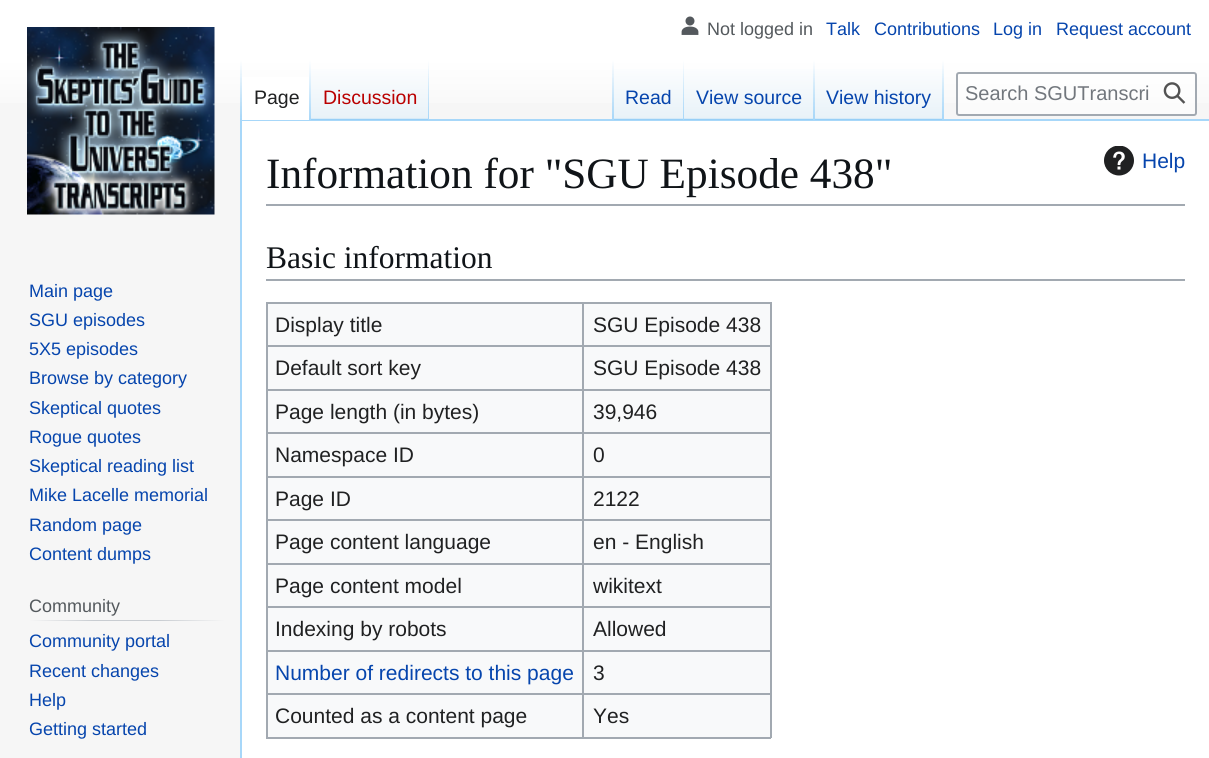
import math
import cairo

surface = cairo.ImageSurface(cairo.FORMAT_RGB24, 1209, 758)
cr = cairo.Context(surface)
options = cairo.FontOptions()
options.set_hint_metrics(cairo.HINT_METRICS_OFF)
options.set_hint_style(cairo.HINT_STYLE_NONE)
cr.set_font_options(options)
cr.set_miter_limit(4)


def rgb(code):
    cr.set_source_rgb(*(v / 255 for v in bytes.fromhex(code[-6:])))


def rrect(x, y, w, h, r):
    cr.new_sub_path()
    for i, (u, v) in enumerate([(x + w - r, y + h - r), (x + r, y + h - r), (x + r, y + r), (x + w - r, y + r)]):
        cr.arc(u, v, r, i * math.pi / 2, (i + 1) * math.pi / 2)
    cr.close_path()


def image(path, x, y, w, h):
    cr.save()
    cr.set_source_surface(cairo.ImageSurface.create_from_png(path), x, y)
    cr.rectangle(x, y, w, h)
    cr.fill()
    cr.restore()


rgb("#f6f6f6")
cr.paint()
gradient = cairo.LinearGradient(605, 0, 605, 120)
gradient.add_color_stop_rgba(0.5, 1, 1, 1, 1)
gradient.add_color_stop_rgba(1, 0.965, 0.965, 0.965, 1)
cr.set_source(gradient)
cr.rectangle(0, 0, 1209, 103)
cr.fill()
image("img/1.png", 681, 16, 18, 19)
rgb("#a7d7f9")
cr.rectangle(240, 119, 969, 2)
cr.fill()
cr.rectangle(240, 119, 2, 639)
cr.fill()
gradient = cairo.LinearGradient(241, 60, 241, 120)
gradient.add_color_stop_rgba(0, 0.655, 0.843, 0.976, 0)
gradient.add_color_stop_rgba(1, 0.655, 0.843, 0.976, 1)
cr.set_source(gradient)
cr.rectangle(240, 60, 2, 60)
cr.fill()
rgb("#ffffff")
cr.rectangle(242, 77, 67, 43)
cr.fill()
gradient = cairo.LinearGradient(310, 60, 310, 120)
gradient.add_color_stop_rgba(0, 1, 1, 1, 1)
gradient.add_color_stop_rgba(1, 0.655, 0.843, 0.976, 1)
cr.set_source(gradient)
cr.rectangle(309, 60, 2, 60)
cr.fill()
gradient = cairo.LinearGradient(370, 120, 370, 60)
gradient.add_color_stop_rgba(0, 0.467, 0.757, 0.965, 1)
gradient.add_color_stop_rgba(0.03, 0.91, 0.949, 0.973, 1)
gradient.add_color_stop_rgba(1, 1, 1, 1, 1)
cr.set_source(gradient)
cr.rectangle(311, 69, 118, 51)
cr.fill()
gradient = cairo.LinearGradient(428, 60, 428, 120)
gradient.add_color_stop_rgba(0, 0.655, 0.843, 0.976, 0)
gradient.add_color_stop_rgba(1, 0.655, 0.843, 0.976, 1)
cr.set_source(gradient)
cr.rectangle(428, 60, 1, 60)
cr.fill()
gradient = cairo.LinearGradient(613, 60, 613, 120)
gradient.add_color_stop_rgba(0, 0.655, 0.843, 0.976, 0)
gradient.add_color_stop_rgba(1, 0.655, 0.843, 0.976, 1)
cr.set_source(gradient)
cr.rectangle(612, 60, 2, 60)
cr.fill()
gradient = cairo.LinearGradient(649, 120, 649, 60)
gradient.add_color_stop_rgba(0, 0.467, 0.757, 0.965, 1)
gradient.add_color_stop_rgba(0.03, 0.91, 0.949, 0.973, 1)
gradient.add_color_stop_rgba(1, 1, 1, 1, 1)
cr.set_source(gradient)
cr.rectangle(614, 69, 70, 51)
cr.fill()
gradient = cairo.LinearGradient(683, 60, 683, 120)
gradient.add_color_stop_rgba(0, 0.655, 0.843, 0.976, 0)
gradient.add_color_stop_rgba(1, 0.655, 0.843, 0.976, 1)
cr.set_source(gradient)
cr.rectangle(683, 60, 1, 60)
cr.fill()
gradient = cairo.LinearGradient(749, 120, 749, 60)
gradient.add_color_stop_rgba(0, 0.467, 0.757, 0.965, 1)
gradient.add_color_stop_rgba(0.03, 0.91, 0.949, 0.973, 1)
gradient.add_color_stop_rgba(1, 1, 1, 1, 1)
cr.set_source(gradient)
cr.rectangle(684, 69, 131, 51)
cr.fill()
gradient = cairo.LinearGradient(814, 60, 814, 120)
gradient.add_color_stop_rgba(0, 0.655, 0.843, 0.976, 0)
gradient.add_color_stop_rgba(1, 0.655, 0.843, 0.976, 1)
cr.set_source(gradient)
cr.rectangle(813, 60, 2, 60)
cr.fill()
gradient = cairo.LinearGradient(879, 120, 879, 60)
gradient.add_color_stop_rgba(0, 0.467, 0.757, 0.965, 1)
gradient.add_color_stop_rgba(0.03, 0.91, 0.949, 0.973, 1)
gradient.add_color_stop_rgba(1, 1, 1, 1, 1)
cr.set_source(gradient)
cr.rectangle(815, 69, 129, 51)
cr.fill()
gradient = cairo.LinearGradient(943, 60, 943, 120)
gradient.add_color_stop_rgba(0, 0.655, 0.843, 0.976, 0)
gradient.add_color_stop_rgba(1, 0.655, 0.843, 0.976, 1)
cr.set_source(gradient)
cr.rectangle(942, 60, 2, 60)
cr.fill()
cr.set_source_rgba(1, 1, 1, 0.5)
rrect(957, 73, 239, 42, 2)
cr.fill_preserve()
rgb("#a2a9b1")
cr.stroke()
image("img/2.png", 1163, 82, 23, 22)
image("img/3.png", 27, 27, 188, 188)
gradient = cairo.LinearGradient(29, 620, 225, 620)
gradient.add_color_stop_rgba(0, 0.965, 0.965, 0.965, 1)
gradient.add_color_stop_rgba(0.33, 0.784, 0.8, 0.82, 1)
gradient.add_color_stop_rgba(0.66, 0.784, 0.8, 0.82, 1)
gradient.add_color_stop_rgba(1, 0.965, 0.965, 0.965, 1)
cr.set_source(gradient)
cr.rectangle(29, 620, 196, 1)
cr.fill()
rgb("#ffffff")
cr.rectangle(242, 121, 967, 637)
cr.fill()
rgb("#a2a9b1")
cr.rectangle(266, 204, 919, 2)
cr.fill()
image("img/4.png", 1104, 146, 30, 30)
for x, y, w, h, color in [
    (266, 279, 919, 2, "#a2a9b1"),
    (268, 304, 502, 433, "#f8f9fa"),
    (266, 302, 505, 2, "#a2a9b1"),
    (770, 302, 2, 436, "#a2a9b1"),
    (266, 737, 505, 2, "#a2a9b1"),
    (266, 302, 2, 436, "#a2a9b1"),
    (582, 345, 189, 2, "#a2a9b1"),
    (582, 389, 189, 2, "#a2a9b1"),
    (582, 432, 189, 2, "#a2a9b1"),
    (582, 476, 189, 2, "#a2a9b1"),
    (582, 519, 189, 2, "#a2a9b1"),
    (582, 563, 189, 2, "#a2a9b1"),
    (582, 606, 189, 2, "#a2a9b1"),
    (582, 650, 189, 2, "#a2a9b1"),
    (582, 693, 189, 2, "#a2a9b1"),
    (582, 693, 2, 45, "#a2a9b1"),
    (266, 693, 318, 2, "#a2a9b1"),
    (582, 650, 2, 45, "#a2a9b1"),
    (266, 650, 318, 2, "#a2a9b1"),
    (582, 606, 2, 45, "#a2a9b1"),
    (266, 606, 318, 2, "#a2a9b1"),
    (582, 563, 2, 45, "#a2a9b1"),
    (266, 563, 318, 2, "#a2a9b1"),
    (582, 519, 2, 45, "#a2a9b1"),
    (266, 519, 318, 2, "#a2a9b1"),
    (582, 476, 2, 45, "#a2a9b1"),
    (266, 476, 318, 2, "#a2a9b1"),
    (582, 432, 2, 45, "#a2a9b1"),
    (266, 432, 318, 2, "#a2a9b1"),
    (582, 389, 2, 45, "#a2a9b1"),
    (266, 389, 318, 2, "#a2a9b1"),
    (582, 345, 2, 45, "#a2a9b1"),
    (266, 345, 318, 2, "#a2a9b1"),
    (582, 302, 2, 45, "#a2a9b1"),
]:
    rgb(color)
    cr.rectangle(x, y, w, h)
    cr.fill()
cr.select_font_face("Liberation Sans")
cr.set_font_size(18)
rgb("#54595d")
cr.move_to(707, 35)
cr.show_text("Not logged in")
rgb("#0645ad")
for x, y, s in [
    (826, 35, "Talk"),
    (874, 35, "Contributions"),
    (993, 35, "Log in"),
    (1056, 35, "Request account"),
]:
    cr.move_to(x, y)
    cr.show_text(s)
cr.set_font_size(19.5)
rgb("#202122")
cr.move_to(254, 104)
cr.show_text("Page")
rgb("#ba0000")
cr.move_to(323, 104)
cr.show_text("Discussion")
rgb("#0645ad")
for x, y, s in [
    (625, 104, "Read"),
    (696, 104, "View source"),
    (826, 104, "View history"),
]:
    cr.move_to(x, y)
    cr.show_text(s)
cr.set_font_size(20)
rgb("#72777d")
cr.move_to(965, 100)
cr.show_text("Search SGUTranscri")
cr.set_font_size(18)
rgb("#0645ad")
for x, y, s in [
    (29, 297, "Main page"),
    (29, 326, "SGU episodes"),
    (29, 355, "5X5 episodes"),
    (29, 384, "Browse by category"),
    (29, 414, "Skeptical quotes"),
    (29, 443, "Rogue quotes"),
    (29, 472, "Skeptical reading list"),
    (29, 501, "Mike Lacelle memorial"),
    (29, 531, "Random page"),
    (29, 560, "Content dumps"),
]:
    cr.move_to(x, y)
    cr.show_text(s)
rgb("#54595d")
cr.move_to(29, 612)
cr.show_text("Community")
rgb("#0645ad")
for x, y, s in [
    (29, 647, "Community portal"),
    (29, 677, "Recent changes"),
    (29, 706, "Help"),
    (29, 735, "Getting started"),
]:
    cr.move_to(x, y)
    cr.show_text(s)
cr.select_font_face("Liberation Serif")
cr.set_font_size(43.25)
rgb("#101418")
cr.move_to(266, 188)
cr.show_text("Information for \"SGU Episode 438\"")
cr.select_font_face("Liberation Sans")
cr.set_font_size(21)
rgb("#0645ad")
cr.move_to(1142, 168)
cr.show_text("Help")
cr.select_font_face("Liberation Serif")
cr.set_font_size(31.5)
rgb("#101418")
cr.move_to(266, 268)
cr.show_text("Basic information")
cr.select_font_face("Liberation Sans")
cr.set_font_size(21)
rgb("#202122")
for x, y, s in [
    (275, 332, "Display title"),
    (593, 332, "SGU Episode 438"),
    (275, 375, "Default sort key"),
    (593, 375, "SGU Episode 438"),
    (275, 419, "Page length (in bytes)"),
    (593, 419, "39,946"),
    (275, 462, "Namespace ID"),
    (593, 462, "0"),
    (275, 506, "Page ID"),
    (593, 506, "2122"),
    (275, 549, "Page content language"),
    (593, 549, "en - English"),
    (275, 593, "Page content model"),
    (593, 593, "wikitext"),
    (275, 636, "Indexing by robots"),
    (593, 636, "Allowed"),
]:
    cr.move_to(x, y)
    cr.show_text(s)
rgb("#0645ad")
cr.move_to(275, 680)
cr.show_text("Number of redirects to this page")
rgb("#202122")
for x, y, s in [
    (593, 680, "3"),
    (275, 723, "Counted as a content page"),
    (593, 723, "Yes"),
]:
    cr.move_to(x, y)
    cr.show_text(s)
surface.write_to_png("page.png")
